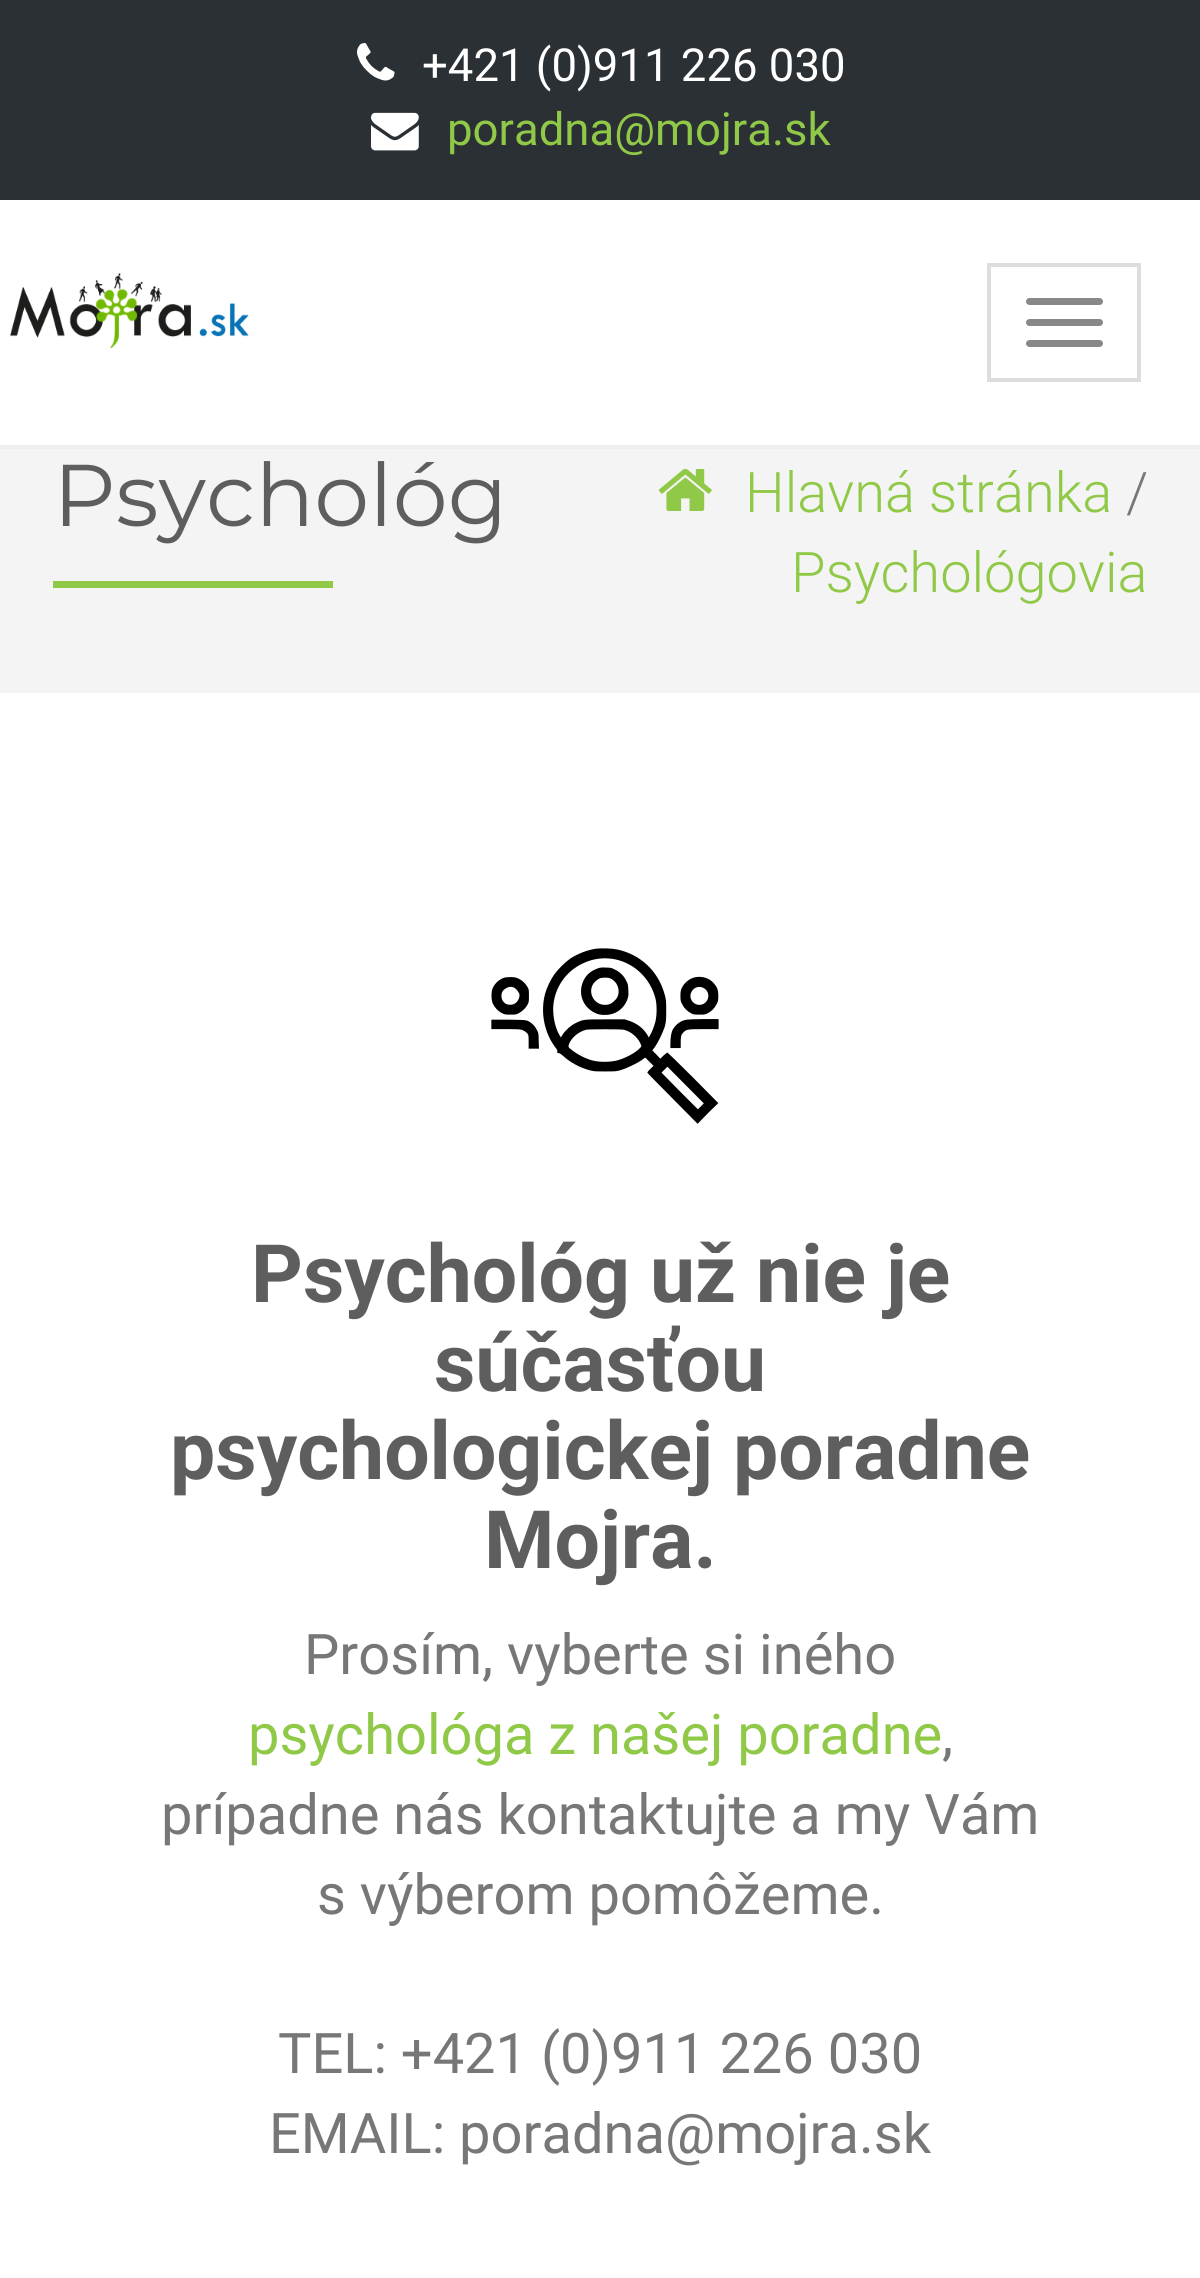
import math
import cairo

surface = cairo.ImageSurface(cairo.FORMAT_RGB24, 1200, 2278)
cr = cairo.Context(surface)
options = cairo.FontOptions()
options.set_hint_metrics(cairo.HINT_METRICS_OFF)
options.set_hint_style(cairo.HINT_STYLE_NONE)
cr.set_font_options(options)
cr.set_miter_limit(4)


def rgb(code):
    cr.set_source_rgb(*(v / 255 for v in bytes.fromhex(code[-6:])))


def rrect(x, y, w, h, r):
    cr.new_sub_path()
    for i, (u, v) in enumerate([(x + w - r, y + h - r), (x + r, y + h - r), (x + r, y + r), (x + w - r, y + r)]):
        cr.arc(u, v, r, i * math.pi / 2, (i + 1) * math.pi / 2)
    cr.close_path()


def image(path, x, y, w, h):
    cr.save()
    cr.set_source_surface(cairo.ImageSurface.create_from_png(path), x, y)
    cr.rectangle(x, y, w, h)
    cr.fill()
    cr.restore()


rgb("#f4f4f4")
cr.paint()
for x, y, w, h, color in [
    (0, 200, 1200, 245, "#ffffff"),
    (0, 445, 1200, 4, "#eeeeee"),
    (0, 0, 1200, 200, "#2b3034"),
]:
    rgb(color)
    cr.rectangle(x, y, w, h)
    cr.fill()
image("img/1.png", 357, 43, 38, 38)
image("img/2.png", 371, 112, 48, 39)
image("img/3.png", 10, 273, 239, 76)
cr.rectangle(989, 265, 150, 115)
rgb("#dddddd")
cr.set_line_width(4)
cr.stroke()
rgb("#888888")
rrect(1026, 298, 77, 7, 3.5)
cr.fill()
rrect(1026, 319, 77, 7, 3.5)
cr.fill()
rrect(1026, 340, 77, 7, 3.5)
cr.fill()
rgb("#90c948")
cr.rectangle(53, 581, 280, 7)
cr.fill()
image("img/4.png", 658, 468, 54, 43)
rgb("#ffffff")
cr.rectangle(0, 693, 1200, 1585)
cr.fill()
image("img/5.png", 491, 948, 228, 176)
cr.select_font_face("Roboto")
cr.set_font_size(45.5)
cr.move_to(422, 81)
cr.show_text("+421 (0)911 226 030")
rgb("#90c948")
cr.move_to(447, 145)
cr.show_text("poradna@mojra.sk")
cr.select_font_face("Montserrat")
cr.set_font_size(87.5)
rgb("#5e5e5e")
cr.move_to(53, 526)
cr.show_text("Psychológ")
cr.select_font_face("Roboto Light")
cr.set_font_size(56)
rgb("#90c948")
cr.move_to(745, 512)
cr.show_text("Hlavná stránka")
rgb("#777777")
cr.move_to(1126, 512)
cr.show_text("/")
rgb("#90c948")
cr.move_to(791, 592)
cr.show_text("Psychológovia")
cr.select_font_face("Roboto", cairo.FONT_SLANT_NORMAL, cairo.FONT_WEIGHT_BOLD)
cr.set_font_size(80.5)
rgb("#5e5e5e")
for x, y, s in [
    (251, 1302, "Psychológ už nie je"),
    (434, 1391, "súčasťou"),
    (170, 1479, "psychologickej poradne"),
    (484, 1568, "Mojra."),
]:
    cr.move_to(x, y)
    cr.show_text(s)
cr.select_font_face("Roboto")
cr.set_font_size(56)
rgb("#777777")
cr.move_to(304, 1674)
cr.show_text("Prosím, vyberte si iného")
rgb("#90c948")
cr.move_to(248, 1754)
cr.show_text("psychológa z našej poradne")
rgb("#777777")
for x, y, s in [
    (942, 1754, ","),
    (161, 1834, "prípadne nás kontaktujte a my Vám"),
    (317, 1914, "s výberom pomôžeme."),
    (278, 2073, "TEL: +421 (0)911 226 030"),
    (269, 2153, "EMAIL: poradna@mojra.sk"),
]:
    cr.move_to(x, y)
    cr.show_text(s)
surface.write_to_png("page.png")
